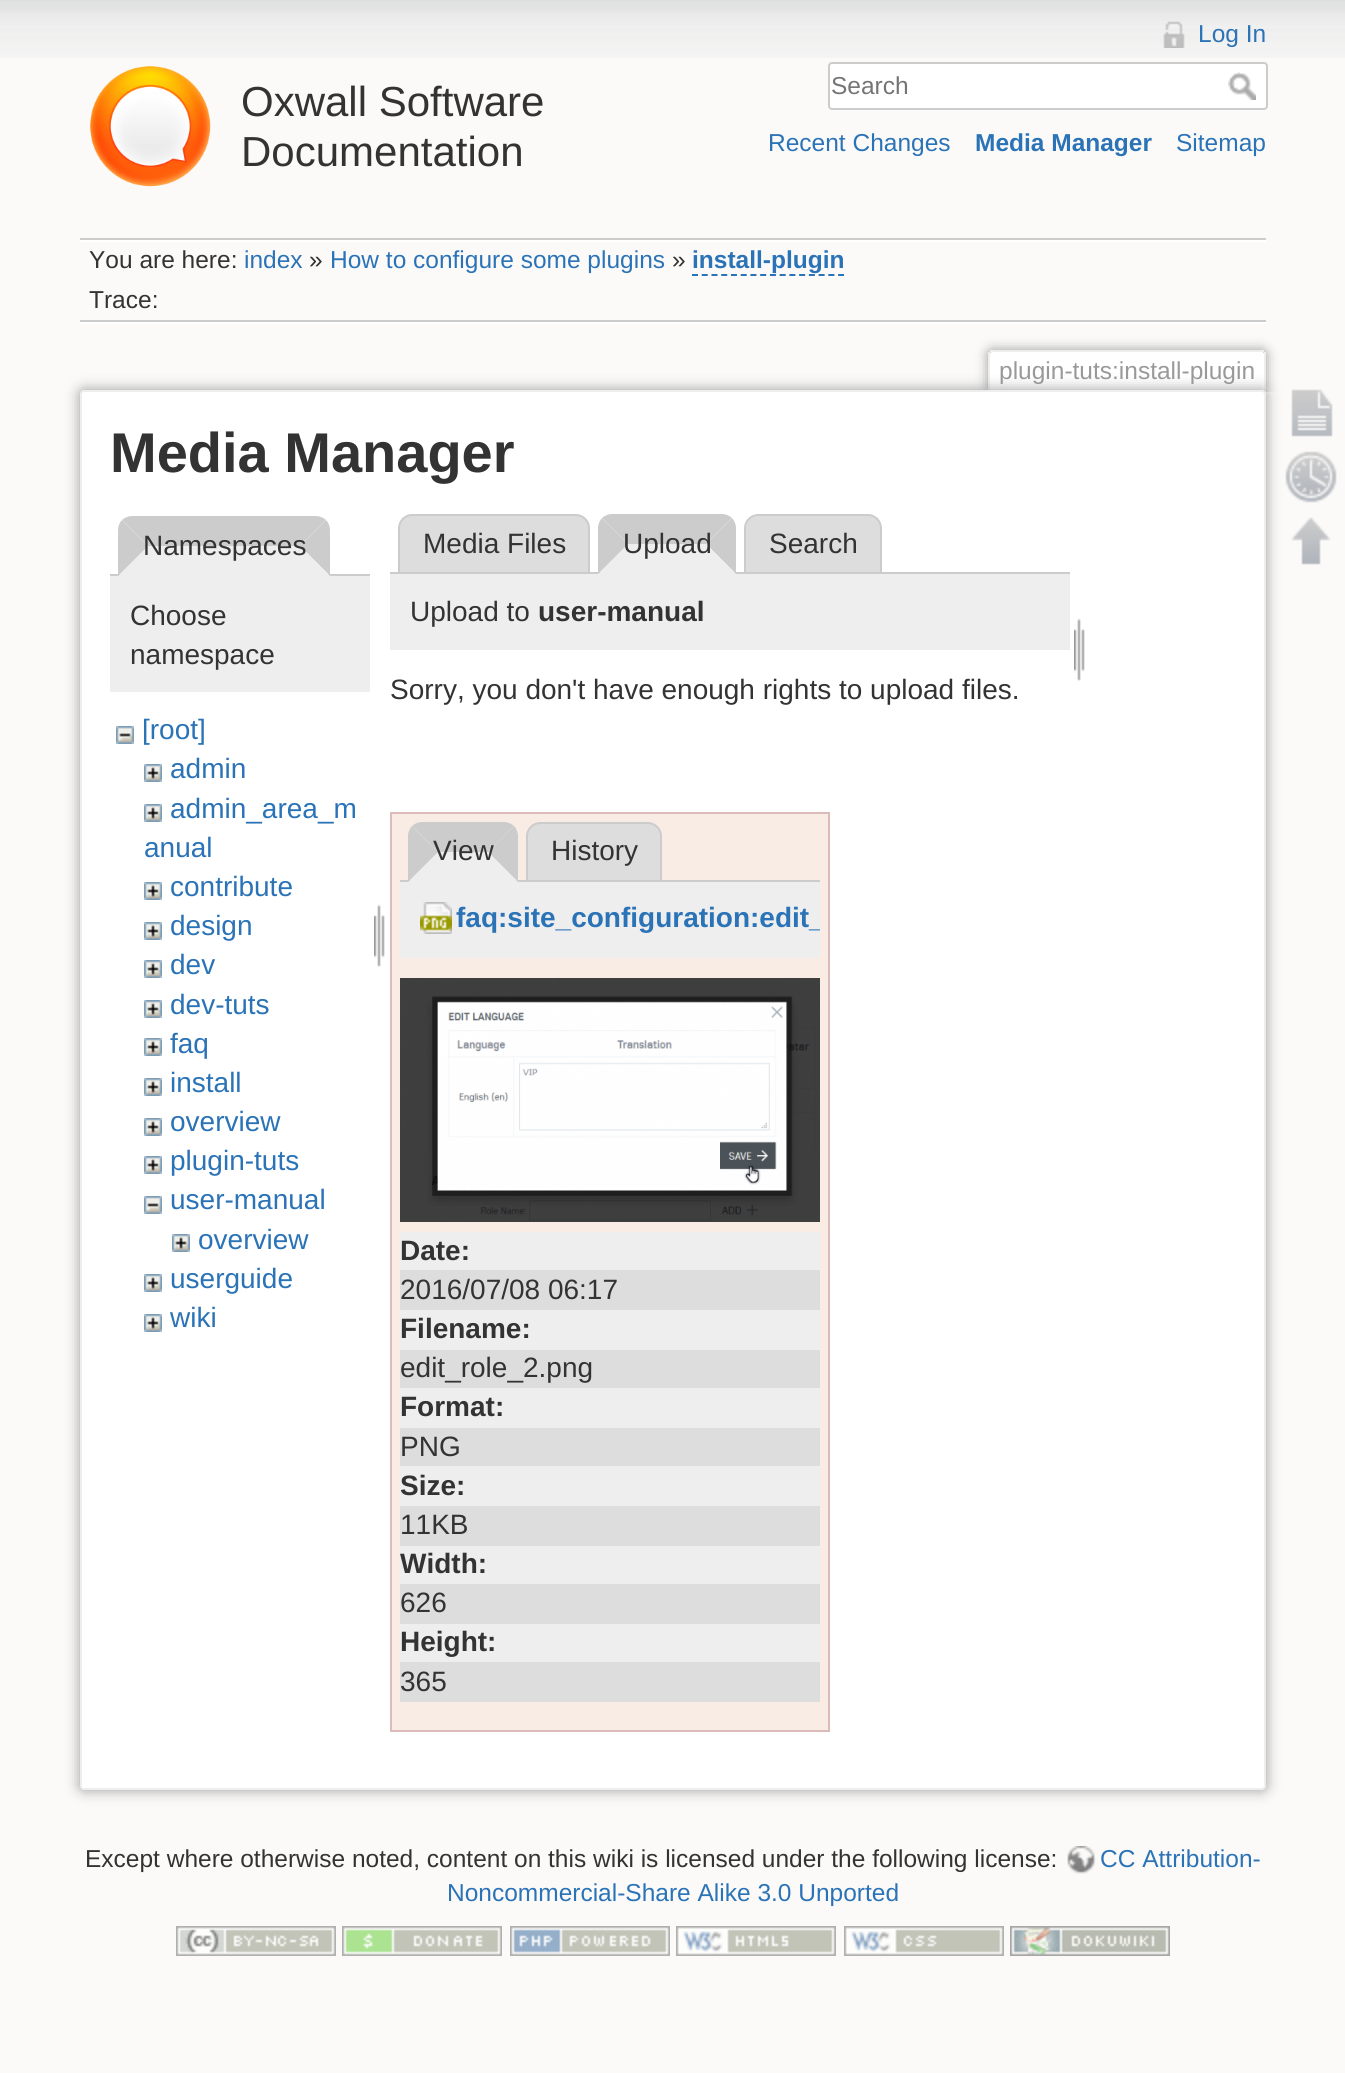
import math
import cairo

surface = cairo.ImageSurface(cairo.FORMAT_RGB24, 1345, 2073)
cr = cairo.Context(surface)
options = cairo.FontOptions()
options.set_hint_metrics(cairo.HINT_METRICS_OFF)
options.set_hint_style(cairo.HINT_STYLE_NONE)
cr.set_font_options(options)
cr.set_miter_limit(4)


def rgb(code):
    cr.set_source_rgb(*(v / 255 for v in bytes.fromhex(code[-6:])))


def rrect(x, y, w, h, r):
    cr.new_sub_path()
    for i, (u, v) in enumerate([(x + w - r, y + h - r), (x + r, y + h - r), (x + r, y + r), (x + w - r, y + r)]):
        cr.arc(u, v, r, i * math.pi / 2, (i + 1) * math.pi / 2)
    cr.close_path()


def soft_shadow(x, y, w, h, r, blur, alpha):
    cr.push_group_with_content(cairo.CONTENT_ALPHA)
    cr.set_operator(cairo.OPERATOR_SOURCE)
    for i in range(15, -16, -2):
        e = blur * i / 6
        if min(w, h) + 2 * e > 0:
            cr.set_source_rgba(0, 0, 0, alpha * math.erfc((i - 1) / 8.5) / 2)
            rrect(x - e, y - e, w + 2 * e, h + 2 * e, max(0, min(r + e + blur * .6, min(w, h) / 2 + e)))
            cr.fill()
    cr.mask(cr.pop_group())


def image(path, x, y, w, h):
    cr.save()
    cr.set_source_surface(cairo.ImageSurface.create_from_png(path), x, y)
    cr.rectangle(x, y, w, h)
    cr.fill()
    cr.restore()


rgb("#fbfaf9")
cr.paint()
image("img/1.png", 0, 0, 1345, 58)
image("img/2.png", 90, 66, 121, 121)
image("img/3.png", 1163, 21, 22, 27)
rgb("#ffffff")
rrect(829, 63, 438, 46, 3)
cr.fill_preserve()
rgb("#cccccc")
cr.stroke()
image("img/4.png", 1228, 72, 28, 28)
for x, y, w, h, color in [
    (80, 238, 1186, 2, "#cccccc"),
    (80, 322, 1186, 2, "#ffffff"),
    (80, 240, 1186, 2, "#ffffff"),
]:
    rgb(color)
    cr.rectangle(x, y, w, h)
    cr.fill()
cr.new_path()
cr.move_to(692, 275)
cr.line_to(844, 275)
rgb("#2b73b7")
cr.set_dash([6, 3.74])
cr.stroke()
rgb("#cccccc")
cr.rectangle(80, 320, 1186, 2)
cr.fill()
cr.save()
cr.rectangle(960, 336, 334, 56)
cr.clip()
rgb("#999999")
soft_shadow(988, 350, 278, 42, 4, 6, 1)
cr.restore()
rgb("#ffffff")
cr.new_path()
cr.move_to(992, 352)
cr.line_to(1262, 352)
cr.curve_to(1263, 352, 1264, 353, 1264, 354)
cr.line_to(1264, 392)
cr.line_to(990, 392)
cr.line_to(990, 354)
cr.curve_to(990, 353, 991, 352, 992, 352)
cr.close_path()
cr.fill()
for x, y, w, h, color in [
    (990, 350, 274, 2, "#eeeeee"),
    (1264, 352, 2, 40, "#eeeeee"),
    (988, 352, 2, 40, "#eeeeee"),
]:
    rgb(color)
    cr.rectangle(x, y, w, h)
    cr.fill()
rgb("#999999")
soft_shadow(80, 390, 1186, 1400, 4, 7, 1)
rgb("#ffffff")
rrect(81, 391, 1184, 1398, 3)
cr.fill_preserve()
rgb("#eeeeee")
cr.set_dash([])
cr.stroke()
rgb("#cccccc")
cr.new_path()
cr.move_to(132, 516)
cr.line_to(316, 516)
cr.curve_to(320, 516, 324, 518, 326, 520)
cr.line_to(300, 546)
cr.line_to(148, 546)
cr.line_to(122, 520)
cr.curve_to(124, 518, 128, 516, 132, 516)
cr.close_path()
cr.fill()
cr.rectangle(110, 574, 260, 2)
cr.fill()
cr.new_path()
cr.move_to(326, 520)
cr.line_to(300, 546)
cr.line_to(330, 576)
cr.line_to(330, 530)
cr.curve_to(330, 526, 328, 522, 326, 520)
cr.close_path()
cr.fill()
rgb("#eeeeee")
cr.new_path()
cr.move_to(330, 576)
cr.line_to(300, 546)
cr.line_to(148, 546)
cr.line_to(118, 576)
cr.close_path()
cr.fill()
rgb("#cccccc")
cr.new_path()
cr.move_to(118, 576)
cr.line_to(118, 530)
cr.curve_to(118, 526, 120, 522, 122, 520)
cr.line_to(148, 546)
cr.close_path()
cr.fill()
rgb("#eeeeee")
cr.rectangle(110, 576, 260, 116)
cr.fill()
image("img/5.png", 116, 726, 18, 18)
image("img/6.png", 144, 764, 18, 18)
image("img/6.png", 144, 804, 18, 18)
image("img/6.png", 144, 882, 18, 18)
image("img/6.png", 144, 922, 18, 18)
image("img/6.png", 144, 960, 18, 18)
image("img/6.png", 144, 1000, 18, 18)
image("img/6.png", 144, 1038, 18, 18)
image("img/6.png", 144, 1078, 18, 18)
image("img/6.png", 144, 1118, 18, 18)
image("img/6.png", 144, 1156, 18, 18)
image("img/5.png", 144, 1196, 18, 18)
image("img/6.png", 172, 1234, 18, 18)
image("img/6.png", 144, 1274, 18, 18)
image("img/6.png", 144, 1314, 18, 18)
image("img/7.png", 374, 904, 11, 63)
rgb("#dddddd")
cr.new_path()
cr.move_to(412, 515)
cr.line_to(576, 515)
cr.curve_to(583, 515, 589, 521, 589, 528)
cr.line_to(589, 573)
cr.line_to(399, 573)
cr.line_to(399, 528)
cr.curve_to(399, 521, 405, 515, 412, 515)
cr.close_path()
cr.fill_preserve()
rgb("#cccccc")
cr.stroke()
cr.new_path()
cr.move_to(612, 514)
cr.line_to(722, 514)
cr.curve_to(726, 514, 730, 516, 732, 518)
cr.line_to(706, 544)
cr.line_to(628, 544)
cr.line_to(602, 518)
cr.curve_to(604, 516, 608, 514, 612, 514)
cr.close_path()
cr.fill()
rgb("#dddddd")
cr.new_path()
cr.move_to(758, 515)
cr.line_to(868, 515)
cr.curve_to(875, 515, 881, 521, 881, 528)
cr.line_to(881, 573)
cr.line_to(745, 573)
cr.line_to(745, 528)
cr.curve_to(745, 521, 751, 515, 758, 515)
cr.close_path()
cr.fill_preserve()
rgb("#cccccc")
cr.stroke()
cr.rectangle(390, 572, 680, 2)
cr.fill()
cr.new_path()
cr.move_to(732, 518)
cr.line_to(706, 544)
cr.line_to(736, 574)
cr.line_to(736, 528)
cr.curve_to(736, 524, 734, 520, 732, 518)
cr.close_path()
cr.fill()
rgb("#eeeeee")
cr.new_path()
cr.move_to(736, 574)
cr.line_to(706, 544)
cr.line_to(628, 544)
cr.line_to(598, 574)
cr.close_path()
cr.fill()
rgb("#cccccc")
cr.new_path()
cr.move_to(598, 574)
cr.line_to(598, 528)
cr.curve_to(598, 524, 600, 520, 602, 518)
cr.line_to(628, 544)
cr.close_path()
cr.fill()
rgb("#eeeeee")
cr.rectangle(390, 574, 680, 76)
cr.fill()
image("img/7.png", 1074, 618, 11, 63)
rgb("#f8ece4")
cr.rectangle(391, 813, 438, 918)
cr.fill_preserve()
rgb("#ddbbbb")
cr.stroke()
rgb("#cccccc")
cr.new_path()
cr.move_to(422, 822)
cr.line_to(504, 822)
cr.curve_to(508, 822, 512, 824, 514, 826)
cr.line_to(488, 852)
cr.line_to(438, 852)
cr.line_to(412, 826)
cr.curve_to(414, 824, 418, 822, 422, 822)
cr.close_path()
cr.fill()
rgb("#dddddd")
cr.new_path()
cr.move_to(540, 823)
cr.line_to(648, 823)
cr.curve_to(655, 823, 661, 829, 661, 836)
cr.line_to(661, 881)
cr.line_to(527, 881)
cr.line_to(527, 836)
cr.curve_to(527, 829, 533, 823, 540, 823)
cr.close_path()
cr.fill_preserve()
rgb("#cccccc")
cr.stroke()
cr.rectangle(400, 880, 420, 2)
cr.fill()
cr.new_path()
cr.move_to(514, 826)
cr.line_to(488, 852)
cr.line_to(518, 882)
cr.line_to(518, 836)
cr.curve_to(518, 832, 516, 828, 514, 826)
cr.close_path()
cr.fill()
rgb("#eeeeee")
cr.new_path()
cr.move_to(518, 882)
cr.line_to(488, 852)
cr.line_to(438, 852)
cr.line_to(408, 882)
cr.close_path()
cr.fill()
rgb("#cccccc")
cr.new_path()
cr.move_to(408, 882)
cr.line_to(408, 836)
cr.curve_to(408, 832, 410, 828, 412, 826)
cr.line_to(438, 852)
cr.close_path()
cr.fill()
rgb("#eeeeee")
cr.rectangle(400, 882, 420, 76)
cr.fill()
image("img/8.png", 420, 902, 32, 32)
image("img/9.png", 400, 978, 420, 244)
for x, y, w, h, color in [
    (400, 1232, 420, 38, "#eeeeee"),
    (400, 1270, 420, 40, "#dddddd"),
    (400, 1310, 420, 40, "#eeeeee"),
    (400, 1350, 420, 38, "#dddddd"),
    (400, 1388, 420, 40, "#eeeeee"),
    (400, 1428, 420, 38, "#dddddd"),
    (400, 1466, 420, 40, "#eeeeee"),
    (400, 1506, 420, 40, "#dddddd"),
    (400, 1546, 420, 38, "#eeeeee"),
    (400, 1584, 420, 40, "#dddddd"),
    (400, 1624, 420, 38, "#eeeeee"),
    (400, 1662, 420, 40, "#dddddd"),
]:
    rgb(color)
    cr.rectangle(x, y, w, h)
    cr.fill()
image("img/10.png", 1291, 389, 42, 48)
image("img/11.png", 1285, 451, 52, 52)
image("img/12.png", 1291, 517, 40, 48)
image("img/13.png", 1067, 1846, 29, 28)
image("img/14.png", 176, 1926, 160, 30)
image("img/15.png", 342, 1926, 160, 30)
image("img/16.png", 510, 1926, 160, 30)
image("img/17.png", 676, 1926, 160, 30)
image("img/18.png", 844, 1926, 160, 30)
image("img/19.png", 1010, 1926, 160, 30)
cr.select_font_face("Liberation Sans")
cr.set_font_size(42)
rgb("#333333")
cr.move_to(241, 116)
cr.show_text("Oxwall Software")
cr.move_to(241, 166)
cr.show_text("Documentation")
cr.set_font_size(24.5)
rgb("#2b73b7")
cr.move_to(1198, 42)
cr.show_text("Log In")
rgb("#757575")
cr.move_to(831, 94)
cr.show_text("Search")
rgb("#2b73b7")
cr.move_to(768, 151)
cr.show_text("Recent Changes")
cr.select_font_face("Liberation Sans", cairo.FONT_SLANT_NORMAL, cairo.FONT_WEIGHT_BOLD)
cr.move_to(975, 151)
cr.show_text("Media Manager")
cr.select_font_face("Liberation Sans")
cr.move_to(1176, 151)
cr.show_text("Sitemap")
rgb("#333333")
cr.move_to(89, 268)
cr.show_text("You are here:")
rgb("#2b73b7")
cr.move_to(244, 268)
cr.show_text("index")
rgb("#333333")
cr.move_to(309, 268)
cr.show_text("»")
rgb("#2b73b7")
cr.move_to(330, 268)
cr.show_text("How to configure some plugins")
rgb("#333333")
cr.move_to(672, 268)
cr.show_text("»")
cr.select_font_face("Liberation Sans", cairo.FONT_SLANT_NORMAL, cairo.FONT_WEIGHT_BOLD)
rgb("#2b73b7")
cr.move_to(692, 268)
cr.show_text("install-plugin")
cr.select_font_face("Liberation Sans")
rgb("#333333")
cr.move_to(89, 308)
cr.show_text("Trace:")
rgb("#999999")
cr.move_to(999, 379)
cr.show_text("plugin-tuts:install-plugin")
cr.select_font_face("Liberation Sans", cairo.FONT_SLANT_NORMAL, cairo.FONT_WEIGHT_BOLD)
cr.set_font_size(56)
rgb("#333333")
cr.move_to(110, 472)
cr.show_text("Media Manager")
cr.select_font_face("Liberation Sans")
cr.set_font_size(28)
for x, y, s in [
    (143, 555, "Namespaces"),
    (130, 625, "Choose"),
    (130, 664, "namespace"),
]:
    cr.move_to(x, y)
    cr.show_text(s)
rgb("#2b73b7")
for x, y, s in [
    (142, 739, "[root]"),
    (170, 778, "admin"),
    (170, 818, "admin_area_m"),
    (144, 857, "anual"),
    (170, 896, "contribute"),
    (170, 935, "design"),
    (170, 974, "dev"),
    (170, 1014, "dev-tuts"),
    (170, 1053, "faq"),
    (170, 1092, "install"),
    (170, 1131, "overview"),
    (170, 1170, "plugin-tuts"),
    (170, 1209, "user-manual"),
    (198, 1249, "overview"),
    (170, 1288, "userguide"),
    (170, 1327, "wiki"),
]:
    cr.move_to(x, y)
    cr.show_text(s)
rgb("#333333")
for x, y, s in [
    (423, 553, "Media Files"),
    (623, 553, "Upload"),
    (769, 553, "Search"),
    (410, 621, "Upload to"),
]:
    cr.move_to(x, y)
    cr.show_text(s)
cr.select_font_face("Liberation Sans", cairo.FONT_SLANT_NORMAL, cairo.FONT_WEIGHT_BOLD)
cr.move_to(538, 621)
cr.show_text("user-manual")
cr.select_font_face("Liberation Sans")
for x, y, s in [
    (390, 699, "Sorry, you don't have enough rights to upload files."),
    (433, 860, "View"),
    (551, 860, "History"),
]:
    cr.move_to(x, y)
    cr.show_text(s)
cr.save()
cr.rectangle(400, 882, 420, 76)
cr.clip()
cr.select_font_face("Liberation Sans", cairo.FONT_SLANT_NORMAL, cairo.FONT_WEIGHT_BOLD)
rgb("#2b73b7")
cr.move_to(456, 927)
cr.show_text("faq:site_configuration:edit_")
cr.restore()
cr.select_font_face("Liberation Sans", cairo.FONT_SLANT_NORMAL, cairo.FONT_WEIGHT_BOLD)
cr.move_to(400, 1260)
cr.show_text("Date:")
cr.select_font_face("Liberation Sans")
cr.move_to(400, 1299)
cr.show_text("2016/07/08 06:17")
cr.select_font_face("Liberation Sans", cairo.FONT_SLANT_NORMAL, cairo.FONT_WEIGHT_BOLD)
cr.move_to(400, 1338)
cr.show_text("Filename:")
cr.select_font_face("Liberation Sans")
cr.move_to(400, 1377)
cr.show_text("edit_role_2.png")
cr.select_font_face("Liberation Sans", cairo.FONT_SLANT_NORMAL, cairo.FONT_WEIGHT_BOLD)
cr.move_to(400, 1416)
cr.show_text("Format:")
cr.select_font_face("Liberation Sans")
cr.move_to(400, 1456)
cr.show_text("PNG")
cr.select_font_face("Liberation Sans", cairo.FONT_SLANT_NORMAL, cairo.FONT_WEIGHT_BOLD)
cr.move_to(400, 1495)
cr.show_text("Size:")
cr.select_font_face("Liberation Sans")
cr.move_to(400, 1534)
cr.show_text("11KB")
cr.select_font_face("Liberation Sans", cairo.FONT_SLANT_NORMAL, cairo.FONT_WEIGHT_BOLD)
cr.move_to(400, 1573)
cr.show_text("Width:")
cr.select_font_face("Liberation Sans")
cr.move_to(400, 1612)
cr.show_text("626")
cr.select_font_face("Liberation Sans", cairo.FONT_SLANT_NORMAL, cairo.FONT_WEIGHT_BOLD)
cr.move_to(400, 1651)
cr.show_text("Height:")
cr.select_font_face("Liberation Sans")
cr.move_to(400, 1691)
cr.show_text("365")
cr.set_font_size(24.5)
cr.move_to(85, 1867)
cr.show_text("Except where otherwise noted, content on this wiki is licensed under the following license:")
rgb("#2b73b7")
cr.move_to(1100, 1867)
cr.show_text("CC Attribution-")
cr.move_to(447, 1901)
cr.show_text("Noncommercial-Share Alike 3.0 Unported")
surface.write_to_png("page.png")
